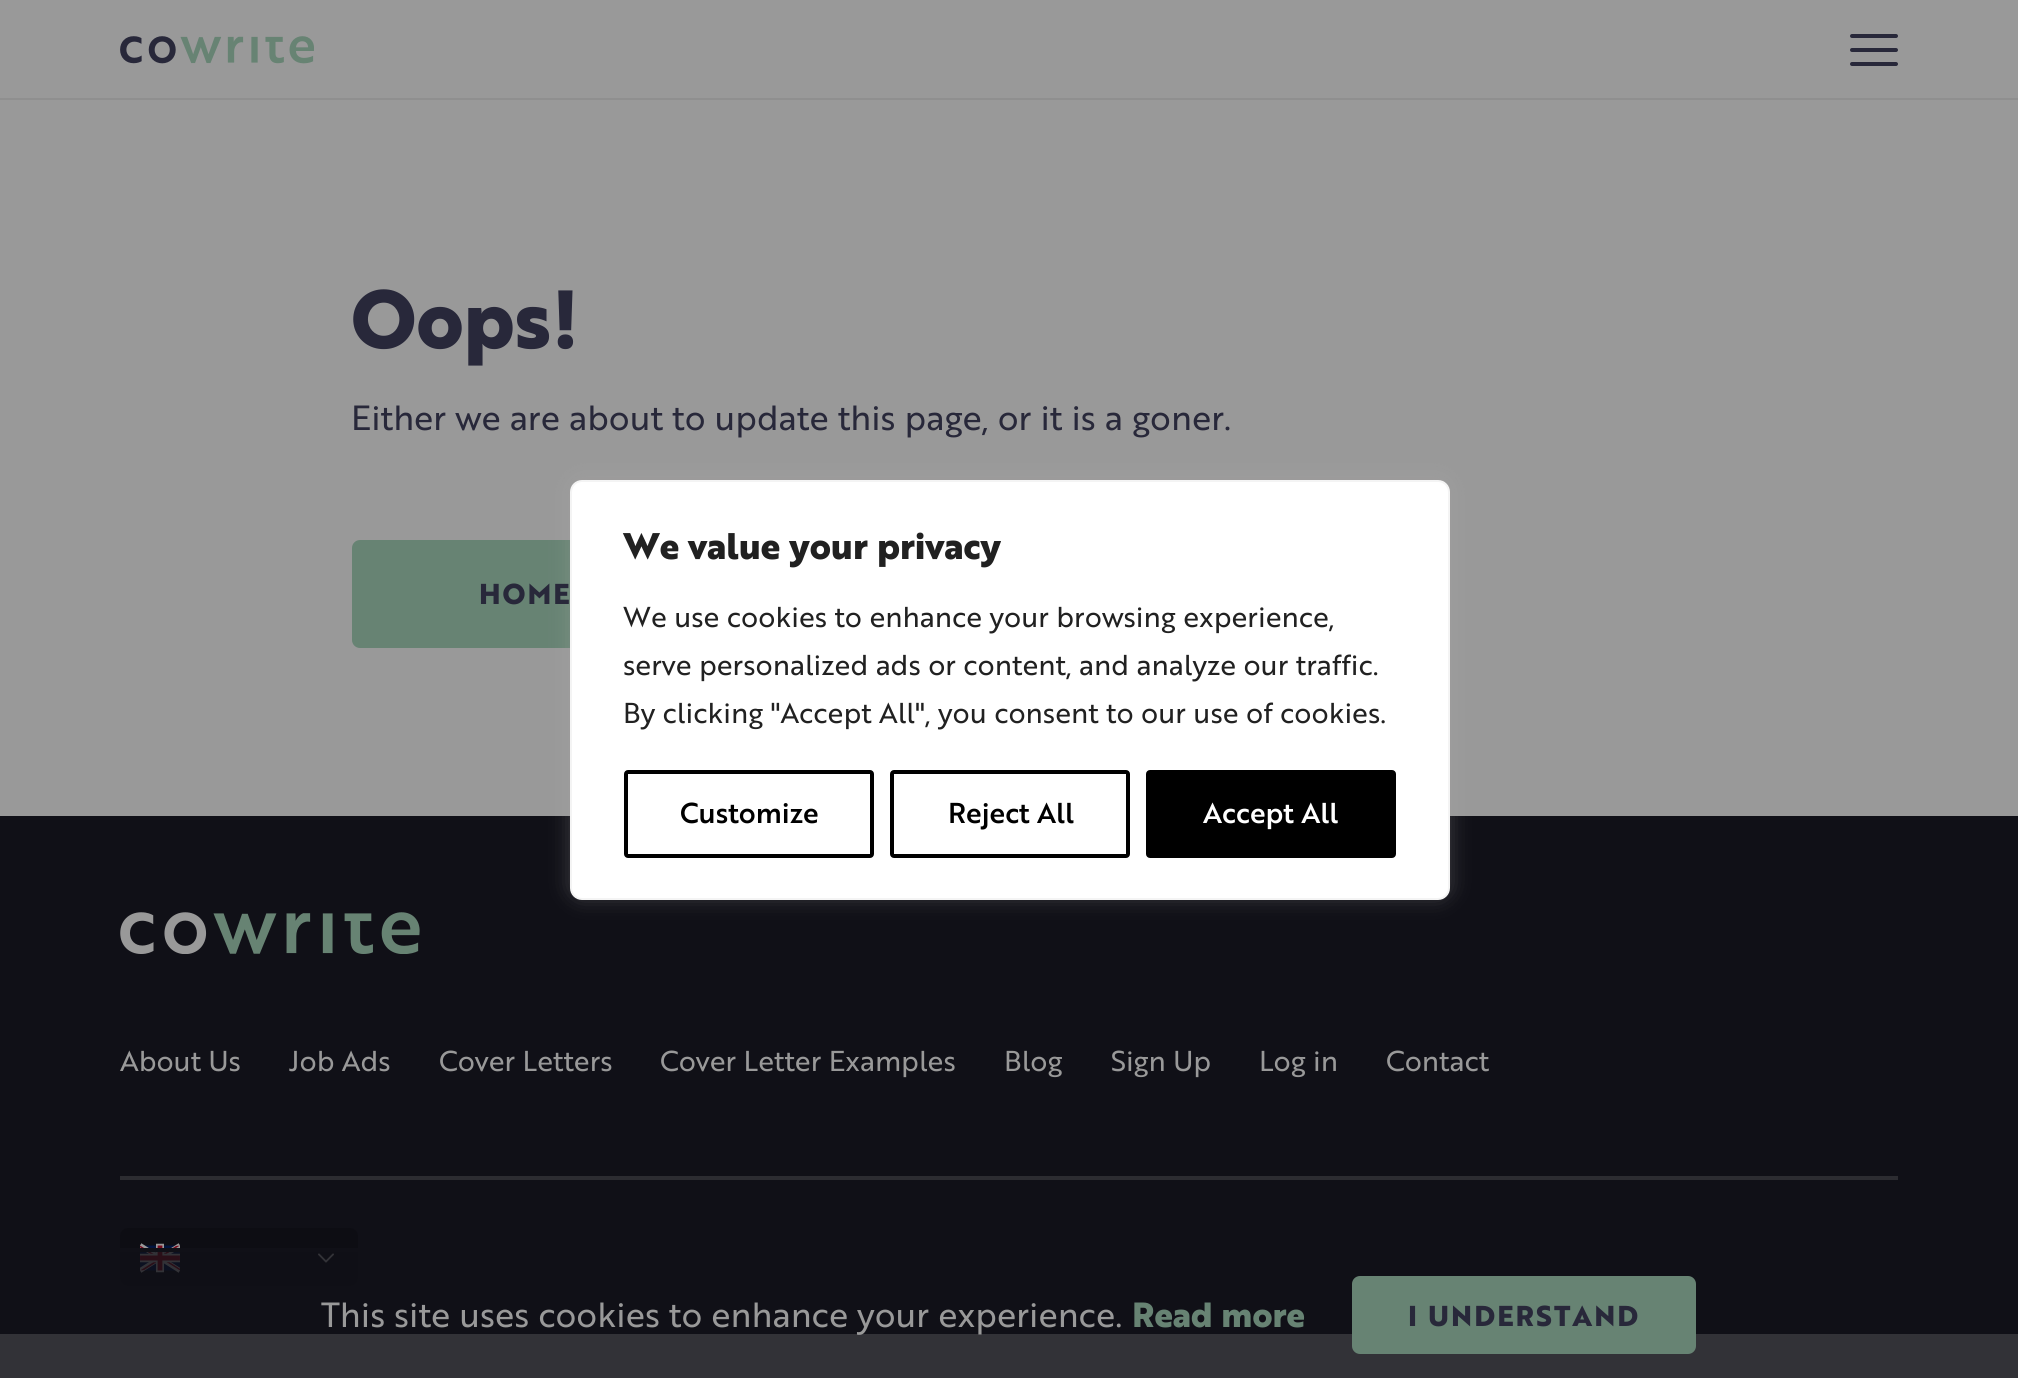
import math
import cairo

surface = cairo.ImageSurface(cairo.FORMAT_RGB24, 2018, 1378)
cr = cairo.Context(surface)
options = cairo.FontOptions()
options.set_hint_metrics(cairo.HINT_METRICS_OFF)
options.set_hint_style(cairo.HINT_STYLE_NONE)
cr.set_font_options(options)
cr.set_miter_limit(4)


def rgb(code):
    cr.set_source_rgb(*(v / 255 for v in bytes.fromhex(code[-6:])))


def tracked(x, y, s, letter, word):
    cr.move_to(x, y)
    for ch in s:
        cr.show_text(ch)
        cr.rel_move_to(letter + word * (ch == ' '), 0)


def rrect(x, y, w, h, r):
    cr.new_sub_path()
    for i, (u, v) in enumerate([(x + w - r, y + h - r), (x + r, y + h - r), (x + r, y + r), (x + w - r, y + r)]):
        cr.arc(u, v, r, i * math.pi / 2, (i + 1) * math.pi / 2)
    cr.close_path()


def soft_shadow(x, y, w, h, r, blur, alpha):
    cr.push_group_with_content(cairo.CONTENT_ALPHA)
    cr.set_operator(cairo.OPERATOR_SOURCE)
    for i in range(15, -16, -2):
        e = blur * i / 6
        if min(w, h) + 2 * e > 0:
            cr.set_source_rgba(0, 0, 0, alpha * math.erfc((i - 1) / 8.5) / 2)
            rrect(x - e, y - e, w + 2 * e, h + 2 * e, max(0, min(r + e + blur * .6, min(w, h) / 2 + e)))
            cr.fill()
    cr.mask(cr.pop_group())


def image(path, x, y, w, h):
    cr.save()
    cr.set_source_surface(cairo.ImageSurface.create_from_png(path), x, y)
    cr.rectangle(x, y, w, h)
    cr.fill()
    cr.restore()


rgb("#999999")
cr.paint()
image("img/1.png", 120, 36, 194, 28)
rgb("#28283a")
rrect(1850, 34, 48, 4, 2)
cr.fill()
rrect(1850, 48, 48, 4, 2)
cr.fill()
rrect(1850, 62, 48, 4, 2)
cr.fill()
rgb("#8f8f8f")
cr.rectangle(0, 98, 2018, 2)
cr.fill()
rgb("#678373")
rrect(352, 540, 348, 108, 8)
cr.fill()
rgb("#101017")
cr.rectangle(0, 816, 2018, 518)
cr.fill()
rgb("#acabab")
soft_shadow(570, 478, 880, 420, 12, 10, 0.3)
rgb("#ffffff")
rrect(571, 481, 878, 418, 11)
cr.fill_preserve()
rgb("#f4f4f4")
cr.stroke()
rrect(626, 772, 246, 84, 2)
rgb("#000000")
cr.set_line_width(4)
cr.stroke()
rrect(892, 772, 236, 84, 2)
cr.stroke()
rrect(1148, 772, 246, 84, 2)
cr.fill_preserve()
cr.stroke()
image("img/2.png", 120, 912, 300, 42)
rgb("#2c2c31")
cr.rectangle(120, 1176, 1778, 4)
cr.fill()
rgb("#0d0d13")
rrect(120, 1228, 238, 58, 8)
cr.fill()
image("img/3.png", 140, 1243, 40, 30)
image("img/4.png", 318, 1253, 16, 10)
cr.set_source_rgba(0.063, 0.063, 0.09, 0.75)
cr.rectangle(0, 1252, 2018, 126)
cr.fill()
rgb("#101017")
cr.rectangle(120, 1248, 238, 4)
cr.fill()
rgb("#678373")
rrect(1352, 1276, 344, 78, 8)
cr.fill()
cr.select_font_face("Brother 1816 ExtraBold")
cr.set_font_size(80)
rgb("#28283a")
cr.move_to(351, 348)
cr.show_text("Oops!")
cr.select_font_face("Brother 1816")
cr.set_font_size(34)
cr.move_to(351, 430)
cr.show_text("Either we are about to update this page, or it is a goner.")
cr.select_font_face("Brother 1816 ExtraBold")
cr.set_font_size(28)
tracked(479, 604, "HOME", 2, 0)
cr.set_font_size(36)
rgb("#212121")
cr.move_to(623, 559)
cr.show_text("We value your privacy")
cr.select_font_face("Brother 1816")
cr.set_font_size(28)
for x, y, s in [
    (623, 627, "We use cookies to enhance your browsing experience,"),
    (623, 675, "serve personalized ads or content, and analyze our traffic."),
    (623, 723, "By clicking \"Accept All\", you consent to our use of cookies."),
]:
    cr.move_to(x, y)
    cr.show_text(s)
cr.select_font_face("Brother 1816 Medium")
rgb("#000000")
cr.move_to(680, 823)
cr.show_text("Customize")
cr.move_to(948, 823)
cr.show_text("Reject All")
rgb("#ffffff")
cr.move_to(1203, 823)
cr.show_text("Accept All")
cr.select_font_face("Brother 1816")
rgb("#999999")
for x, y, s in [
    (120, 1071, "About Us"),
    (289, 1071, "Job Ads"),
    (439, 1071, "Cover Letters"),
    (660, 1071, "Cover Letter Examples"),
    (1004, 1071, "Blog"),
    (1111, 1071, "Sign Up"),
    (1259, 1071, "Log in"),
    (1386, 1071, "Contact"),
]:
    cr.move_to(x, y)
    cr.show_text(s)
cr.set_font_size(34)
cr.move_to(321, 1327)
cr.show_text("This site uses cookies to enhance your experience.")
cr.select_font_face("Brother 1816 ExtraBold")
rgb("#678373")
cr.move_to(1132, 1327)
cr.show_text("Read more")
cr.set_font_size(28)
rgb("#28283a")
tracked(1408, 1326, "I UNDERSTAND", 2, 0)
surface.write_to_png("page.png")
